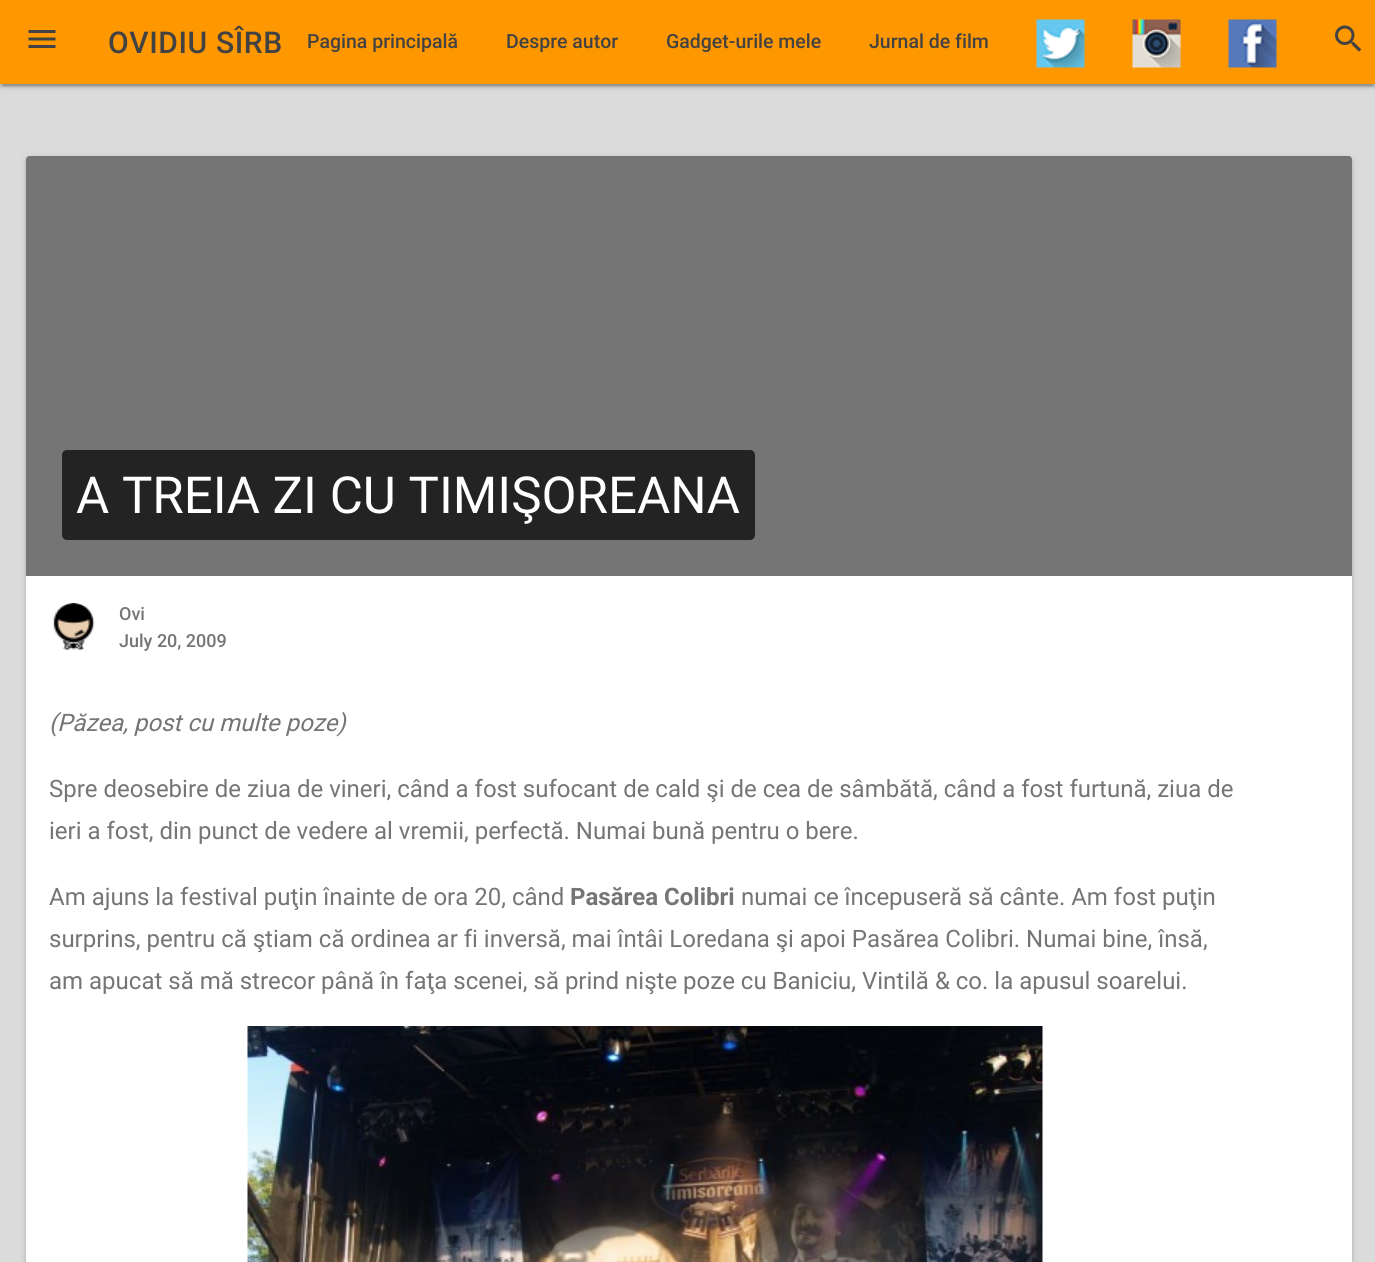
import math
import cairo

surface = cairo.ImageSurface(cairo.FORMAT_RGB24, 1375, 1262)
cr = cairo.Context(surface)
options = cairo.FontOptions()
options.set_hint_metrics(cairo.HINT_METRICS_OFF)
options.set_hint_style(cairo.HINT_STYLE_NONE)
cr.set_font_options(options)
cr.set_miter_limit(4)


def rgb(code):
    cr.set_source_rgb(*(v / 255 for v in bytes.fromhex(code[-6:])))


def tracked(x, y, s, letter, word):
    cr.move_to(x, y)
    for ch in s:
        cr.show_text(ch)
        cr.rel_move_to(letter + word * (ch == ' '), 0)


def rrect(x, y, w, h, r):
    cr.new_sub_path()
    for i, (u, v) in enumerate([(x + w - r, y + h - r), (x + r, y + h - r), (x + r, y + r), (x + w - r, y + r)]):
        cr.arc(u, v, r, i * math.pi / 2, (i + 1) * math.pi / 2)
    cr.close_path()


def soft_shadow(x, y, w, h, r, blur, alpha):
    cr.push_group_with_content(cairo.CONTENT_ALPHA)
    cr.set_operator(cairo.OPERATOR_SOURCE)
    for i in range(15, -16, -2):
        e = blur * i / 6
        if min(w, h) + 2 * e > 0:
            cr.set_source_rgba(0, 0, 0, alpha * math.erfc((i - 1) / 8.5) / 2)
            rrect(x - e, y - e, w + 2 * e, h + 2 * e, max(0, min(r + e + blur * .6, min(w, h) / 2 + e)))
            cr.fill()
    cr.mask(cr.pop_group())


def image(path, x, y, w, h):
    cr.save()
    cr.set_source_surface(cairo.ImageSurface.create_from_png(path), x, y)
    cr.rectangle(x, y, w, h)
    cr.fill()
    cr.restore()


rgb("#dbdbdb")
cr.paint()
rgb("#000000")
soft_shadow(0, 2, 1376, 84, 0, 4, 0.12)
soft_shadow(3, 8, 1370, 78, 0, 1, 0.2)
soft_shadow(0, 3, 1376, 84, 0, 1.5, 0.14)
rgb("#ff9800")
cr.rectangle(0, 0, 1375, 84)
cr.fill()
image("img/1.png", 28, 30, 28, 18)
image("img/2.png", 1036, 19, 49, 49)
image("img/3.png", 1132, 19, 49, 49)
image("img/4.png", 1228, 19, 49, 49)
image("img/5.png", 1335, 25, 27, 27)
rgb("#000000")
soft_shadow(26, 158, 1326, 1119, 3, 4, 0.12)
soft_shadow(26, 159, 1326, 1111, 3, 1.5, 0.14)
rgb("#ffffff")
cr.new_path()
cr.move_to(29, 156)
cr.line_to(1349, 156)
cr.curve_to(1350.5, 156, 1352, 157.5, 1352, 159)
cr.line_to(1352, 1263)
cr.line_to(26, 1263)
cr.line_to(26, 159)
cr.curve_to(26, 157.5, 27.5, 156, 29, 156)
cr.close_path()
cr.fill()
rgb("#757575")
cr.new_path()
cr.move_to(29, 156)
cr.line_to(1349, 156)
cr.curve_to(1350.5, 156, 1352, 157.5, 1352, 159)
cr.line_to(1352, 576)
cr.line_to(26, 576)
cr.line_to(26, 159)
cr.curve_to(26, 157.5, 27.5, 156, 29, 156)
cr.close_path()
cr.fill()
rgb("#232323")
rrect(62, 450, 693, 90, 5)
cr.fill()
image("img/6.png", 53, 603, 42, 47)
image("img/7.png", 247, 1026, 796, 236)
cr.select_font_face("Roboto Medium")
cr.set_font_size(30)
rgb("#424242")
tracked(108, 53, "OVIDIU SÎRB", 0.6, 0)
cr.set_font_size(19.5)
for x, y, s in [
    (307, 48, "Pagina principală"),
    (506, 48, "Despre autor"),
    (666, 48, "Gadget-urile mele"),
    (869, 48, "Jurnal de film"),
]:
    cr.move_to(x, y)
    cr.show_text(s)
cr.select_font_face("Roboto")
cr.set_font_size(51)
rgb("#ffffff")
cr.move_to(76, 513)
cr.show_text("A TREIA ZI CU TIMIŞOREANA")
cr.select_font_face("Roboto Medium")
cr.set_font_size(18)
rgb("#757575")
cr.move_to(119, 620)
cr.show_text("Ovi")
cr.move_to(119, 647)
cr.show_text("July 20, 2009")
cr.select_font_face("Roboto", cairo.FONT_SLANT_ITALIC)
cr.set_font_size(24)
cr.move_to(49, 731)
cr.show_text("(Păzea, post cu multe poze)")
cr.select_font_face("Roboto")
for x, y, s in [
    (49, 797, "Spre deosebire de ziua de vineri, când a fost sufocant de cald şi de cea de sâmbătă, când a fost furtună, ziua de"),
    (49, 839, "ieri a fost, din punct de vedere al vremii, perfectă. Numai bună pentru o bere."),
    (49, 905, "Am ajuns la festival puţin înainte de ora 20, când"),
]:
    cr.move_to(x, y)
    cr.show_text(s)
cr.select_font_face("Roboto", cairo.FONT_SLANT_NORMAL, cairo.FONT_WEIGHT_BOLD)
cr.move_to(570, 905)
cr.show_text("Pasărea Colibri")
cr.select_font_face("Roboto")
for x, y, s in [
    (741, 905, "numai ce începuseră să cânte. Am fost puţin"),
    (49, 947, "surprins, pentru că ştiam că ordinea ar fi inversă, mai întâi Loredana şi apoi Pasărea Colibri. Numai bine, însă,"),
    (49, 989, "am apucat să mă strecor până în faţa scenei, să prind nişte poze cu Baniciu, Vintilă & co. la apusul soarelui."),
]:
    cr.move_to(x, y)
    cr.show_text(s)
surface.write_to_png("page.png")
